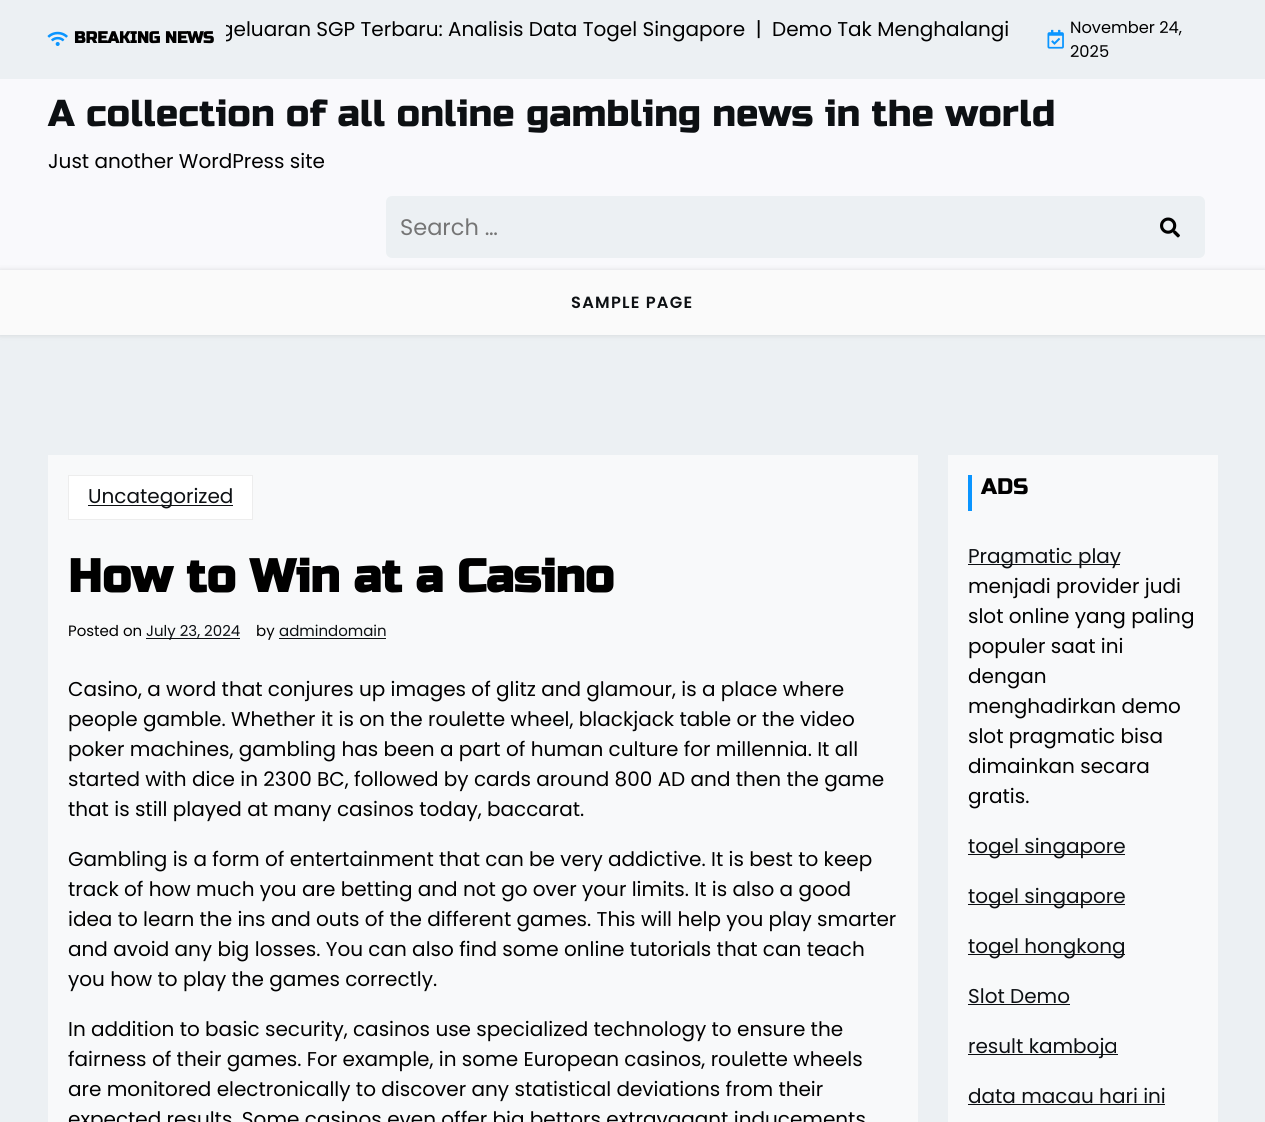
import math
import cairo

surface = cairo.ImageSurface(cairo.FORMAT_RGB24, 1265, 1122)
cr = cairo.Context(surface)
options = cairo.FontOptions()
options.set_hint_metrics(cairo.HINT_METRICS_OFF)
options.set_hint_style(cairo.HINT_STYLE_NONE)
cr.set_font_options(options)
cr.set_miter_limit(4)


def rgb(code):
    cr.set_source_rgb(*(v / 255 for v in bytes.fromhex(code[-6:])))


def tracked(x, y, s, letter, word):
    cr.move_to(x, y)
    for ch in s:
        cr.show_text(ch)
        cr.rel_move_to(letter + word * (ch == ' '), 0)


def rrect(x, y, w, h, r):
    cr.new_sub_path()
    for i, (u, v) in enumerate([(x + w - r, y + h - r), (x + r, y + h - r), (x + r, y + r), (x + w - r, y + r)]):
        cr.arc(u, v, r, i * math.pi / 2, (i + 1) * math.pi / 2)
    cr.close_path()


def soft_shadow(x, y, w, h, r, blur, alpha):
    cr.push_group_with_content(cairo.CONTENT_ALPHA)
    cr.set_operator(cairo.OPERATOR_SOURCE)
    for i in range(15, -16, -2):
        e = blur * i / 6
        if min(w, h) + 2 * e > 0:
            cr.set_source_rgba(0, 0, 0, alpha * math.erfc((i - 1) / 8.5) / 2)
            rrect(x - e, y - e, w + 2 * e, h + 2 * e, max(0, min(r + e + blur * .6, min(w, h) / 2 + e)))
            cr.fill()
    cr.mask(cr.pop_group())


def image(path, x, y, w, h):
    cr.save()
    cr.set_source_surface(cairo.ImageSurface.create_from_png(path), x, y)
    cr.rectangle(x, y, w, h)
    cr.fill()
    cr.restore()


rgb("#ecf0f3")
cr.paint()
image("img/1.png", 47, 31, 21, 15)
image("img/2.png", 1047, 29, 17, 20)
rgb("#f9f9fc")
cr.rectangle(0, 79, 1265, 191)
cr.fill()
rgb("#ecf0f3")
rrect(386, 196, 819, 62, 6)
cr.fill()
image("img/3.png", 1160, 217, 20, 21)
rgb("#000000")
soft_shadow(0, 270, 1265, 65, 0, 3, 0.12)
rgb("#fafafa")
cr.rectangle(0, 270, 1265, 65)
cr.fill()
rgb("#f8f9fa")
cr.rectangle(48, 455, 870, 667)
cr.fill()
rgb("#ffffff")
cr.rectangle(68.5, 475.5, 184, 44)
cr.fill_preserve()
rgb("#ededed")
cr.set_line_width(1)
cr.stroke()
for x, y, w, h, color in [
    (88, 505, 145, 1, "#0d1013"),
    (146, 638, 94, 1, "#0d1013"),
    (279, 638, 107, 1, "#0d1013"),
    (948, 455, 270, 667, "#f8f9fa"),
    (968, 475, 4, 36, "#0a95ff"),
    (968, 564, 152, 1, "#0d1013"),
    (968, 854, 157, 1, "#0d1013"),
    (968, 904, 157, 1, "#0d1013"),
    (968, 954, 157, 1, "#0d1013"),
    (968, 1004, 102, 1, "#0d1013"),
    (968, 1054, 150, 1, "#0d1013"),
    (968, 1104, 197, 1, "#0d1013"),
]:
    rgb(color)
    cr.rectangle(x, y, w, h)
    cr.fill()
cr.select_font_face("Russo One", cairo.FONT_SLANT_NORMAL, cairo.FONT_WEIGHT_BOLD)
cr.set_font_size(16.25)
rgb("#000000")
cr.move_to(74, 43)
cr.show_text("BREAKING NEWS")
cr.save()
cr.rectangle(226, 15, 792, 30)
cr.clip()
cr.select_font_face("Poppins")
cr.set_font_size(20)
cr.move_to(220, 36)
cr.show_text("geluaran SGP Terbaru: Analisis Data Togel Singapore  |")
cr.restore()
cr.select_font_face("Poppins")
cr.set_font_size(20)
cr.move_to(772, 36)
cr.show_text("Demo Tak Menghalangi")
cr.set_font_size(16.25)
cr.move_to(1070, 33)
cr.show_text("November 24,")
cr.move_to(1070, 57)
cr.show_text("2025")
cr.select_font_face("Russo One")
cr.set_font_size(37.5)
rgb("#0d1013")
cr.move_to(48, 126)
cr.show_text("A collection of all online gambling news in the world")
cr.select_font_face("Poppins")
cr.set_font_size(20)
rgb("#000000")
cr.move_to(48, 168)
cr.show_text("Just another WordPress site")
cr.set_font_size(22.5)
rgb("#757575")
cr.move_to(400, 235)
cr.show_text("Search …")
cr.select_font_face("Poppins SemiBold")
cr.set_font_size(16.25)
rgb("#0d1013")
tracked(571, 308, "SAMPLE PAGE", 1.25, 0)
cr.select_font_face("Poppins")
cr.set_font_size(20)
cr.move_to(88, 503)
cr.show_text("Uncategorized")
cr.select_font_face("Russo One", cairo.FONT_SLANT_NORMAL, cairo.FONT_WEIGHT_BOLD)
cr.set_font_size(46.5)
rgb("#000000")
cr.move_to(68, 592)
cr.show_text("How to Win at a Casino")
cr.select_font_face("Poppins")
cr.set_font_size(15)
cr.move_to(68, 636)
cr.show_text("Posted on")
rgb("#0d1013")
cr.move_to(146, 636)
cr.show_text("July 23, 2024")
rgb("#000000")
cr.move_to(256, 636)
cr.show_text("by")
rgb("#0d1013")
cr.move_to(279, 636)
cr.show_text("admindomain")
cr.set_font_size(20)
rgb("#000000")
for x, y, s in [
    (68, 696, "Casino, a word that conjures up images of glitz and glamour, is a place where"),
    (68, 726, "people gamble. Whether it is on the roulette wheel, blackjack table or the video"),
    (68, 756, "poker machines, gambling has been a part of human culture for millennia. It all"),
    (68, 786, "started with dice in 2300 BC, followed by cards around 800 AD and then the game"),
    (68, 816, "that is still played at many casinos today, baccarat."),
    (68, 866, "Gambling is a form of entertainment that can be very addictive. It is best to keep"),
    (68, 896, "track of how much you are betting and not go over your limits. It is also a good"),
    (68, 926, "idea to learn the ins and outs of the different games. This will help you play smarter"),
    (68, 956, "and avoid any big losses. You can also find some online tutorials that can teach"),
    (68, 986, "you how to play the games correctly."),
    (68, 1036, "In addition to basic security, casinos use specialized technology to ensure the"),
    (68, 1066, "fairness of their games. For example, in some European casinos, roulette wheels"),
    (68, 1096, "are monitored electronically to discover any statistical deviations from their"),
    (68, 1126, "expected results. Some casinos even offer big bettors extravagant inducements"),
]:
    cr.move_to(x, y)
    cr.show_text(s)
cr.select_font_face("Russo One")
cr.set_font_size(22.5)
cr.move_to(981, 494)
cr.show_text("ADS")
cr.select_font_face("Poppins")
cr.set_font_size(20)
rgb("#0d1013")
cr.move_to(968, 563)
cr.show_text("Pragmatic play")
rgb("#000000")
for x, y, s in [
    (968, 593, "menjadi provider judi"),
    (968, 623, "slot online yang paling"),
    (968, 653, "populer saat ini"),
    (968, 683, "dengan"),
    (968, 713, "menghadirkan demo"),
    (968, 743, "slot pragmatic bisa"),
    (968, 773, "dimainkan secara"),
    (968, 803, "gratis."),
]:
    cr.move_to(x, y)
    cr.show_text(s)
rgb("#0d1013")
for x, y, s in [
    (968, 853, "togel singapore"),
    (968, 903, "togel singapore"),
    (968, 953, "togel hongkong"),
    (968, 1003, "Slot Demo"),
    (968, 1053, "result kamboja"),
    (968, 1103, "data macau hari ini"),
]:
    cr.move_to(x, y)
    cr.show_text(s)
surface.write_to_png("page.png")
